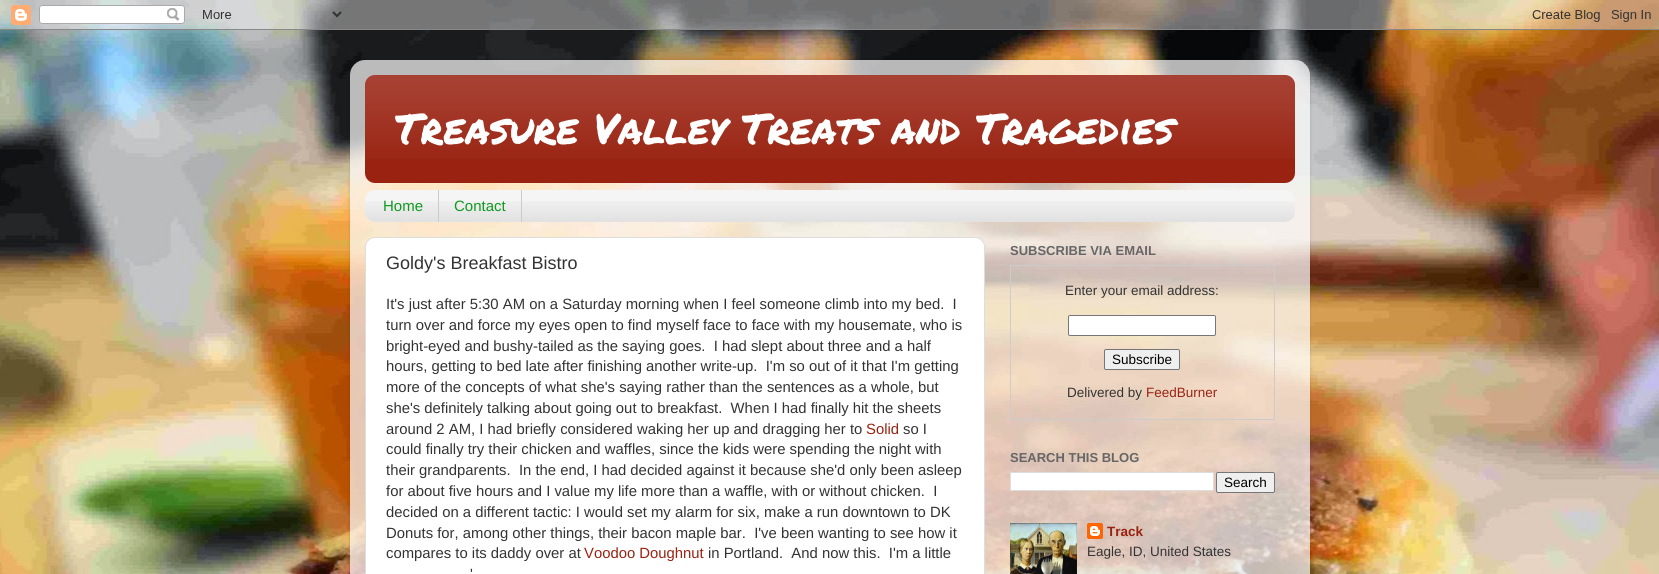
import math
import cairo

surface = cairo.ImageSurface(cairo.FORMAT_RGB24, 1659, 574)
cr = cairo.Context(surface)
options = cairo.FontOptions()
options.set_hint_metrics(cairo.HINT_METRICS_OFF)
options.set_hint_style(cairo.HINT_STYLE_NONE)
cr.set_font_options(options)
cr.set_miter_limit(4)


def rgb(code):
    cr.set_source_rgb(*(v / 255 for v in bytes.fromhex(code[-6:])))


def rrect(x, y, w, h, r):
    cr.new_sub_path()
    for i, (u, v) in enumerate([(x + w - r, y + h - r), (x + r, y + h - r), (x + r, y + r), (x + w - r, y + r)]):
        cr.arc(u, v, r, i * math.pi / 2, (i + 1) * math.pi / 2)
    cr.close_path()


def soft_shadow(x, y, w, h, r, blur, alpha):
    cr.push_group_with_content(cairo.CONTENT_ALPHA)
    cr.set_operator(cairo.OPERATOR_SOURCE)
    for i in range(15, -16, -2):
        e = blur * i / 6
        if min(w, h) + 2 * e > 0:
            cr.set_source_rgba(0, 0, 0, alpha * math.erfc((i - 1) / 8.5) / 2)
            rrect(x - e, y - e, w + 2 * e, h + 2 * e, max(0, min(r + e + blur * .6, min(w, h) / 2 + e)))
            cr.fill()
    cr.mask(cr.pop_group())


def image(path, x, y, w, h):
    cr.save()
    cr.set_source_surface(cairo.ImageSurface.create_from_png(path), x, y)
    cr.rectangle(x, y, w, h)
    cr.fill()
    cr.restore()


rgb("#ffffff")
cr.paint()
image("img/1.png", 0, 0, 1659, 574)
image("img/2.png", 0, 0, 1659, 30)
cr.save()
cr.set_fill_rule(cairo.FILL_RULE_EVEN_ODD)
cr.new_path()
cr.move_to(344, 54)
cr.line_to(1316, 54)
cr.line_to(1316, 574)
cr.line_to(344, 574)
cr.close_path()
cr.move_to(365, 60)
cr.line_to(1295, 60)
cr.curve_to(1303.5, 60, 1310, 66.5, 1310, 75)
cr.line_to(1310, 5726)
cr.curve_to(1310, 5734.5, 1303.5, 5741, 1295, 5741)
cr.line_to(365, 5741)
cr.curve_to(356.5, 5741, 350, 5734.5, 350, 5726)
cr.line_to(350, 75)
cr.curve_to(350, 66.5, 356.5, 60, 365, 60)
cr.close_path()
cr.clip()
rgb("#000000")
soft_shadow(350, 60, 960, 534, 15, 1.5, 0.15)
cr.restore()
image("img/3.png", 350, 60, 960, 514)
rgb("#992211")
rrect(365, 75, 930, 108, 10)
cr.fill()
image("img/4.png", 365, 75, 930, 84)
rgb("#f5f5f5")
rrect(365, 190, 930, 32, 10)
cr.fill()
image("img/5.png", 365, 201, 930, 21)
rgb("#cccccc")
cr.rectangle(438, 190, 1, 32)
cr.fill()
cr.rectangle(521, 190, 1, 32)
cr.fill()
rgb("#ffffff")
rrect(365.5, 237.5, 619, 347, 9.5)
cr.fill_preserve()
rgb("#dddddd")
cr.set_line_width(1)
cr.stroke()
cr.rectangle(1010.5, 265.5, 264, 154)
rgb("#cccccc")
cr.stroke()
rgb("#ffffff")
rrect(1068.5, 315.5, 147, 20, 1.5)
cr.fill_preserve()
rgb("#767676")
cr.stroke()
rgb("#efefef")
rrect(1104.5, 349.5, 75, 20, 1.5)
cr.fill_preserve()
rgb("#767676")
cr.stroke()
rgb("#ffffff")
cr.rectangle(1010.5, 472.5, 203, 18)
cr.fill_preserve()
rgb("#dddddd")
cr.stroke()
rgb("#efefef")
rrect(1216.5, 472.5, 58, 20, 1.5)
cr.fill_preserve()
rgb("#767676")
cr.stroke()
image("img/6.png", 1010, 523, 67, 51)
image("img/7.png", 1087, 523, 16, 16)
cr.select_font_face("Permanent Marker")
cr.set_font_size(42)
rgb("#ffffff")
cr.move_to(395, 144)
cr.show_text("Treasure Valley Treats and Tragedies")
cr.select_font_face("Liberation Sans")
cr.set_font_size(15)
rgb("#119922")
cr.move_to(383, 211)
cr.show_text("Home")
cr.move_to(454, 211)
cr.show_text("Contact")
cr.set_font_size(18)
rgb("#333333")
cr.move_to(386, 269)
cr.show_text("Goldy's Breakfast Bistro")
cr.set_font_size(14.85)
for x, y, s in [
    (386, 309, "It's just after 5:30 AM on a Saturday morning when I feel someone climb into my bed.  I"),
    (386, 330, "turn over and force my eyes open to find myself face to face with my housemate, who is"),
    (386, 351, "bright-eyed and bushy-tailed as the saying goes.  I had slept about three and a half"),
    (386, 371, "hours, getting to bed late after finishing another write-up.  I'm so out of it that I'm getting"),
    (386, 392, "more of the concepts of what she's saying rather than the sentences as a whole, but"),
    (386, 413, "she's definitely talking about going out to breakfast.  When I had finally hit the sheets"),
    (386, 434, "around 2 AM, I had briefly considered waking her up and dragging her to"),
]:
    cr.move_to(x, y)
    cr.show_text(s)
rgb("#992211")
cr.move_to(866, 434)
cr.show_text("Solid")
rgb("#333333")
for x, y, s in [
    (903, 434, "so I"),
    (386, 454, "could finally try their chicken and waffles, since the kids were spending the night with"),
    (386, 475, "their grandparents.  In the end, I had decided against it because she'd only been asleep"),
    (386, 496, "for about five hours and I value my life more than a waffle, with or without chicken.  I"),
    (386, 517, "decided on a different tactic: I would set my alarm for six, make a run downtown to DK"),
    (386, 538, "Donuts for, among other things, their bacon maple bar.  I've been wanting to see how it"),
    (386, 558, "compares to its daddy over at"),
]:
    cr.move_to(x, y)
    cr.show_text(s)
rgb("#992211")
cr.move_to(584, 558)
cr.show_text("Voodoo Doughnut")
rgb("#333333")
cr.move_to(708, 558)
cr.show_text("in Portland.  And now this.  I'm a little")
cr.move_to(470, 579)
cr.show_text("'")
cr.select_font_face("Liberation Sans", cairo.FONT_SLANT_NORMAL, cairo.FONT_WEIGHT_BOLD)
cr.set_font_size(13)
rgb("#666666")
cr.move_to(1010, 255)
cr.show_text("SUBSCRIBE VIA EMAIL")
cr.select_font_face("Liberation Sans")
cr.set_font_size(13.5)
rgb("#333333")
cr.move_to(1065, 295)
cr.show_text("Enter your email address:")
rgb("#000000")
cr.move_to(1112, 364)
cr.show_text("Subscribe")
rgb("#333333")
cr.move_to(1067, 397)
cr.show_text("Delivered by")
rgb("#992211")
cr.move_to(1146, 397)
cr.show_text("FeedBurner")
cr.select_font_face("Liberation Sans", cairo.FONT_SLANT_NORMAL, cairo.FONT_WEIGHT_BOLD)
cr.set_font_size(13)
rgb("#666666")
cr.move_to(1010, 462)
cr.show_text("SEARCH THIS BLOG")
cr.select_font_face("Liberation Sans")
cr.set_font_size(13.5)
rgb("#000000")
cr.move_to(1224, 487)
cr.show_text("Search")
cr.select_font_face("Liberation Sans", cairo.FONT_SLANT_NORMAL, cairo.FONT_WEIGHT_BOLD)
rgb("#992211")
cr.move_to(1107, 536)
cr.show_text("Track")
cr.select_font_face("Liberation Sans")
rgb("#333333")
cr.move_to(1087, 556)
cr.show_text("Eagle, ID, United States")
surface.write_to_png("page.png")
